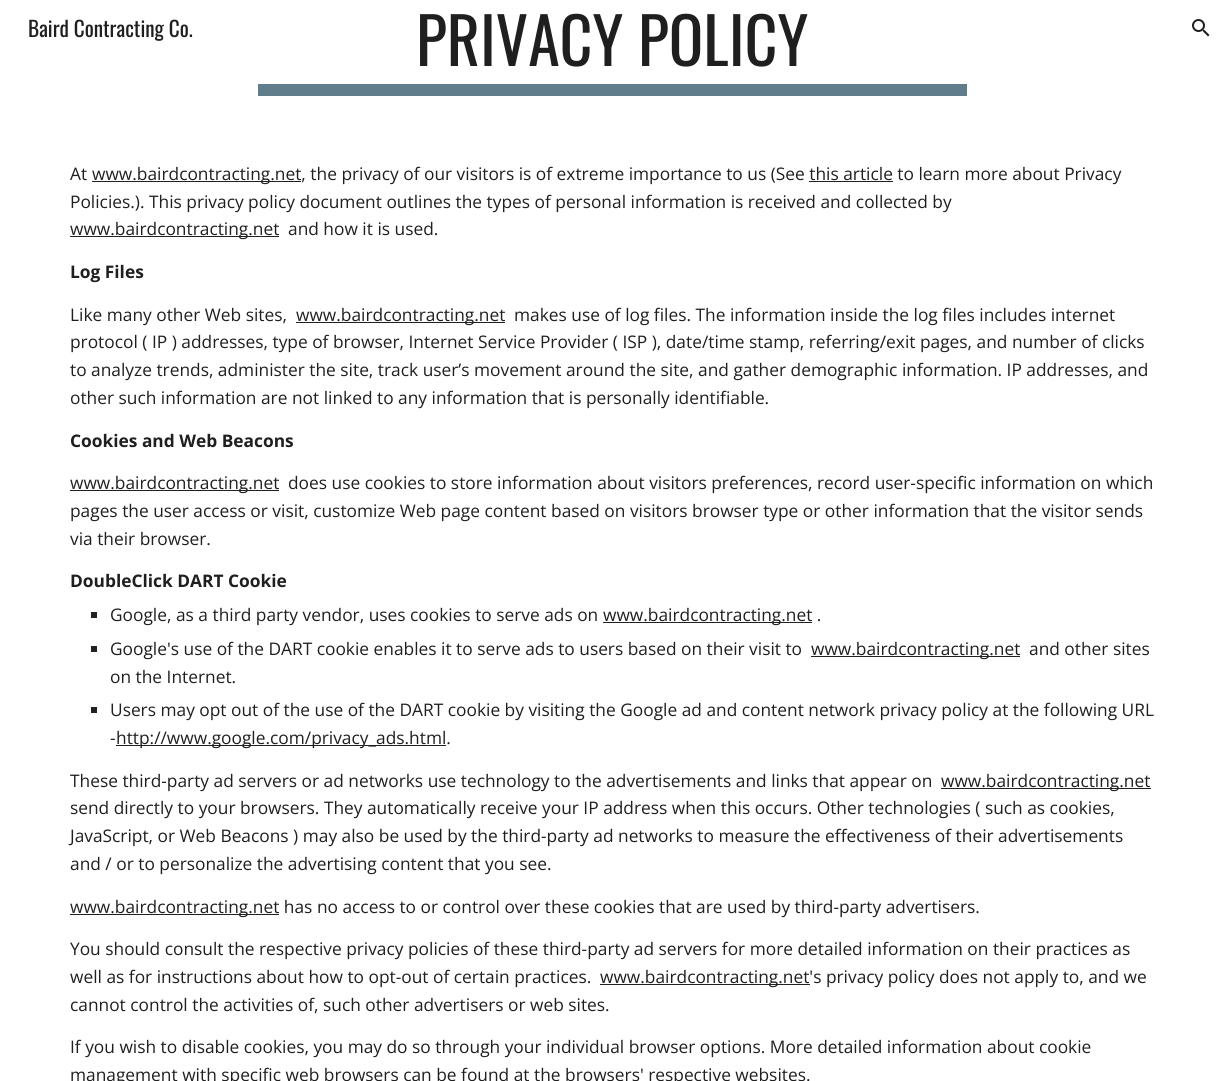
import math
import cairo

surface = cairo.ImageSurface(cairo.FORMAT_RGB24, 1225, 1081)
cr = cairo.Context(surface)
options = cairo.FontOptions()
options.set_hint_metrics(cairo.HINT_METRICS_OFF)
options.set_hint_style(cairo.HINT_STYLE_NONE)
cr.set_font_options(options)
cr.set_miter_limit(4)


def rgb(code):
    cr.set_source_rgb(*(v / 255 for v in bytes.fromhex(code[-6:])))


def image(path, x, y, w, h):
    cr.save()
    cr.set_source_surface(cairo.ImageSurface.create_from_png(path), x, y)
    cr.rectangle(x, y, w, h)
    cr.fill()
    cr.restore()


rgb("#ffffff")
cr.paint()
for x, y, w, h, color in [
    (258, 84, 709, 12, "#607d8b"),
    (92, 181, 209, 1, "#212121"),
    (70, 236, 209, 1, "#212121"),
    (296, 322, 209, 1, "#212121"),
    (70, 490, 209, 1, "#212121"),
    (91, 612, 6, 6, "#212121"),
    (603, 622, 209, 1, "#212121"),
    (91, 646, 6, 6, "#212121"),
    (811, 656, 209, 1, "#212121"),
    (91, 707, 6, 6, "#212121"),
    (116, 745, 330, 1, "#212121"),
    (941, 788, 210, 1, "#212121"),
    (70, 914, 209, 1, "#212121"),
    (600, 984, 210, 1, "#212121"),
]:
    rgb(color)
    cr.rectangle(x, y, w, h)
    cr.fill()
image("img/1.png", 1192, 19, 18, 18)
cr.select_font_face("Oswald")
cr.set_font_size(64)
rgb("#1f1f1f")
cr.move_to(416, 66)
cr.show_text("PRIVACY POLICY")
cr.select_font_face("Open Sans")
cr.set_font_size(17.33)
cr.move_to(70, 180)
cr.show_text("At")
cr.move_to(92, 180)
cr.show_text("www.bairdcontracting.net, the privacy of our visitors is of extreme importance to us (See this article to learn more about Privacy")
rgb("#212121")
cr.rectangle(809, 181, 84, 1)
cr.fill()
rgb("#1f1f1f")
for x, y, s in [
    (70, 208, "Policies.). This privacy policy document outlines the types of personal information is received and collected by"),
    (70, 235, "www.bairdcontracting.net"),
    (288, 235, "and how it is used."),
]:
    cr.move_to(x, y)
    cr.show_text(s)
cr.select_font_face("Open Sans", cairo.FONT_SLANT_NORMAL, cairo.FONT_WEIGHT_BOLD)
cr.move_to(70, 278)
cr.show_text("Log Files")
cr.select_font_face("Open Sans")
for x, y, s in [
    (70, 321, "Like many other Web sites,"),
    (296, 321, "www.bairdcontracting.net"),
    (514, 321, "makes use of log files. The information inside the log files includes internet"),
    (70, 348, "protocol ( IP ) addresses, type of browser, Internet Service Provider ( ISP ), date/time stamp, referring/exit pages, and number of clicks"),
    (70, 376, "to analyze trends, administer the site, track user’s movement around the site, and gather demographic information. IP addresses, and"),
    (70, 404, "other such information are not linked to any information that is personally identifiable."),
]:
    cr.move_to(x, y)
    cr.show_text(s)
cr.select_font_face("Open Sans", cairo.FONT_SLANT_NORMAL, cairo.FONT_WEIGHT_BOLD)
cr.move_to(70, 447)
cr.show_text("Cookies and Web Beacons")
cr.select_font_face("Open Sans")
for x, y, s in [
    (70, 489, "www.bairdcontracting.net"),
    (288, 489, "does use cookies to store information about visitors preferences, record user-specific information on which"),
    (70, 517, "pages the user access or visit, customize Web page content based on visitors browser type or other information that the visitor sends"),
    (70, 545, "via their browser."),
]:
    cr.move_to(x, y)
    cr.show_text(s)
cr.select_font_face("Open Sans", cairo.FONT_SLANT_NORMAL, cairo.FONT_WEIGHT_BOLD)
cr.move_to(70, 587)
cr.show_text("DoubleClick DART Cookie")
cr.select_font_face("Open Sans")
for x, y, s in [
    (110, 621, "Google, as a third party vendor, uses cookies to serve ads on"),
    (603, 621, "www.bairdcontracting.net ."),
    (110, 655, "Google's use of the DART cookie enables it to serve ads to users based on their visit to"),
    (811, 655, "www.bairdcontracting.net"),
    (1029, 655, "and other sites"),
    (110, 683, "on the Internet."),
    (110, 716, "Users may opt out of the use of the DART cookie by visiting the Google ad and content network privacy policy at the following URL"),
    (110, 744, "-"),
    (116, 744, "http://www.google.com/privacy_ads.html."),
    (70, 787, "These third-party ad servers or ad networks use technology to the advertisements and links that appear on"),
    (941, 787, "www.bairdcontracting.net"),
    (70, 814, "send directly to your browsers. They automatically receive your IP address when this occurs. Other technologies ( such as cookies,"),
    (70, 842, "JavaScript, or Web Beacons ) may also be used by the third-party ad networks to measure the effectiveness of their advertisements"),
    (70, 870, "and / or to personalize the advertising content that you see."),
    (70, 913, "www.bairdcontracting.net has no access to or control over these cookies that are used by third-party advertisers."),
    (70, 955, "You should consult the respective privacy policies of these third-party ad servers for more detailed information on their practices as"),
    (70, 983, "well as for instructions about how to opt-out of certain practices."),
    (600, 983, "www.bairdcontracting.net's privacy policy does not apply to, and we"),
    (70, 1011, "cannot control the activities of, such other advertisers or web sites."),
    (70, 1053, "If you wish to disable cookies, you may do so through your individual browser options. More detailed information about cookie"),
    (70, 1081, "management with specific web browsers can be found at the browsers' respective websites."),
]:
    cr.move_to(x, y)
    cr.show_text(s)
cr.select_font_face("Oswald")
cr.set_font_size(21.25)
cr.move_to(28, 37)
cr.show_text("Baird Contracting Co.")
surface.write_to_png("page.png")
